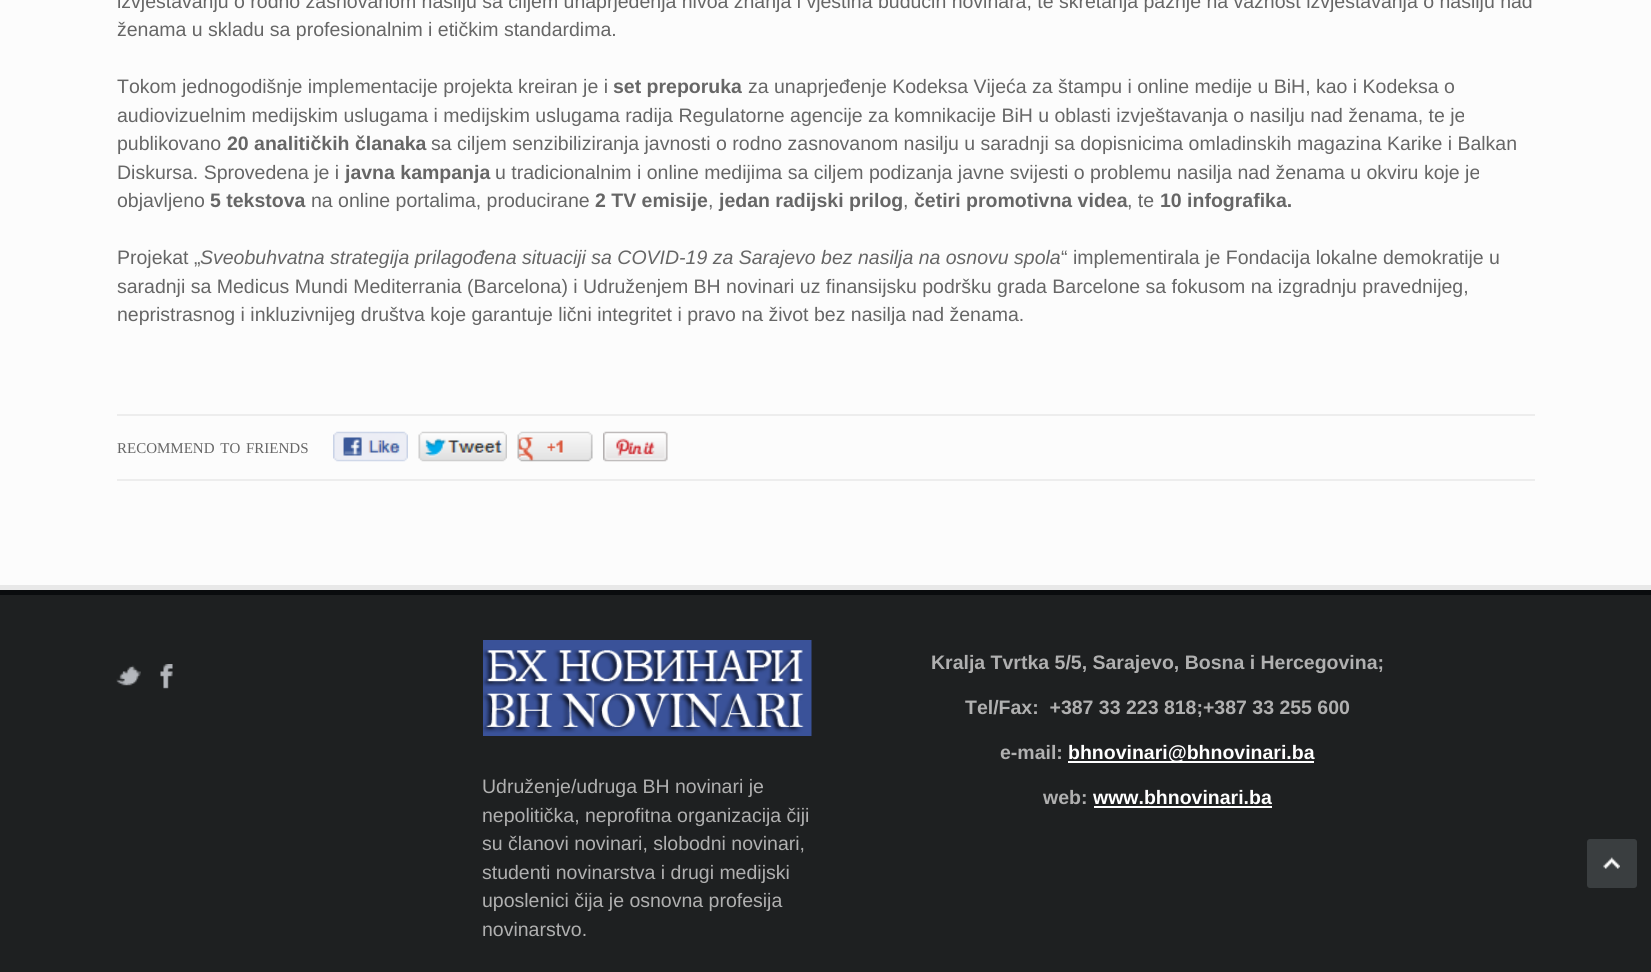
import math
import cairo

surface = cairo.ImageSurface(cairo.FORMAT_RGB24, 1651, 972)
cr = cairo.Context(surface)
options = cairo.FontOptions()
options.set_hint_metrics(cairo.HINT_METRICS_OFF)
options.set_hint_style(cairo.HINT_STYLE_NONE)
cr.set_font_options(options)
cr.set_miter_limit(4)


def rgb(code):
    cr.set_source_rgb(*(v / 255 for v in bytes.fromhex(code[-6:])))


def tracked(x, y, s, letter, word):
    cr.move_to(x, y)
    for ch in s:
        cr.show_text(ch)
        cr.rel_move_to(letter + word * (ch == ' '), 0)


def rrect(x, y, w, h, r):
    cr.new_sub_path()
    for i, (u, v) in enumerate([(x + w - r, y + h - r), (x + r, y + h - r), (x + r, y + r), (x + w - r, y + r)]):
        cr.arc(u, v, r, i * math.pi / 2, (i + 1) * math.pi / 2)
    cr.close_path()


def image(path, x, y, w, h):
    cr.save()
    cr.set_source_surface(cairo.ImageSurface.create_from_png(path), x, y)
    cr.rectangle(x, y, w, h)
    cr.fill()
    cr.restore()


rgb("#fcfcfc")
cr.paint()
rgb("#ededed")
cr.rectangle(117, 414, 1418, 2)
cr.fill()
cr.rectangle(117, 479, 1418, 2)
cr.fill()
image("img/1.png", 333, 431, 75, 31)
image("img/2.png", 418, 431, 89, 31)
image("img/3.png", 517, 431, 76, 31)
image("img/4.png", 603, 431, 65, 31)
for x, y, w, h, color in [
    (0, 585, 1651, 5, "#e8e8e8"),
    (0, 595, 1651, 377, "#1e2021"),
    (0, 590, 1651, 5, "#0a0c0e"),
]:
    rgb(color)
    cr.rectangle(x, y, w, h)
    cr.fill()
image("img/5.png", 116, 665, 25, 21)
image("img/6.png", 160, 664, 13, 25)
rgb("#ffffff")
cr.rectangle(1068, 761, 246, 2)
cr.fill()
cr.rectangle(1094, 806, 178, 2)
cr.fill()
image("img/7.png", 483, 640, 329, 96)
rgb("#3a3e40")
rrect(1587, 839, 50, 49, 3)
cr.fill()
image("img/8.png", 1603, 857, 17, 12)
cr.select_font_face("Liberation Sans")
cr.set_font_size(19.5)
rgb("#666666")
for x, y, s in [
    (117, 8, "izvještavanju o rodno zasnovanom nasilju sa ciljem unaprjeđenja nivoa znanja i vještina budućih novinara, te skretanja pažnje na važnost izvještavanja o nasilju nad"),
    (117, 36, "ženama u skladu sa profesionalnim i etičkim standardima."),
    (117, 93, "Tokom jednogodišnje implementacije projekta kreiran je i"),
]:
    cr.move_to(x, y)
    cr.show_text(s)
cr.select_font_face("Liberation Sans", cairo.FONT_SLANT_NORMAL, cairo.FONT_WEIGHT_BOLD)
cr.move_to(613, 93)
cr.show_text("set preporuka")
cr.select_font_face("Liberation Sans")
for x, y, s in [
    (748, 93, "za unaprjeđenje Kodeksa Vijeća za štampu i online medije u BiH, kao i Kodeksa o"),
    (117, 122, "audiovizuelnim medijskim uslugama i medijskim uslugama radija Regulatorne agencije za komnikacije BiH u oblasti izvještavanja o nasilju nad ženama, te je"),
    (117, 150, "publikovano"),
]:
    cr.move_to(x, y)
    cr.show_text(s)
cr.select_font_face("Liberation Sans", cairo.FONT_SLANT_NORMAL, cairo.FONT_WEIGHT_BOLD)
cr.move_to(227, 150)
cr.show_text("20 analitičkih članaka")
cr.select_font_face("Liberation Sans")
cr.move_to(431, 150)
cr.show_text("sa ciljem senzibiliziranja javnosti o rodno zasnovanom nasilju u saradnji sa dopisnicima omladinskih magazina Karike i Balkan")
cr.move_to(117, 179)
cr.show_text("Diskursa. Sprovedena je i")
cr.select_font_face("Liberation Sans", cairo.FONT_SLANT_NORMAL, cairo.FONT_WEIGHT_BOLD)
cr.move_to(345, 179)
cr.show_text("javna kampanja")
cr.select_font_face("Liberation Sans")
cr.move_to(495, 179)
cr.show_text("u tradicionalnim i online medijima sa ciljem podizanja javne svijesti o problemu nasilja nad ženama u okviru koje je")
cr.move_to(117, 207)
cr.show_text("objavljeno")
cr.select_font_face("Liberation Sans", cairo.FONT_SLANT_NORMAL, cairo.FONT_WEIGHT_BOLD)
cr.move_to(210, 207)
cr.show_text("5 tekstova")
cr.select_font_face("Liberation Sans")
cr.move_to(311, 207)
cr.show_text("na online portalima, producirane")
cr.select_font_face("Liberation Sans", cairo.FONT_SLANT_NORMAL, cairo.FONT_WEIGHT_BOLD)
cr.move_to(595, 207)
cr.show_text("2 TV emisije")
cr.select_font_face("Liberation Sans")
cr.move_to(708, 207)
cr.show_text(",")
cr.select_font_face("Liberation Sans", cairo.FONT_SLANT_NORMAL, cairo.FONT_WEIGHT_BOLD)
cr.move_to(719, 207)
cr.show_text("jedan radijski prilog")
cr.select_font_face("Liberation Sans")
cr.move_to(903, 207)
cr.show_text(",")
cr.select_font_face("Liberation Sans", cairo.FONT_SLANT_NORMAL, cairo.FONT_WEIGHT_BOLD)
cr.move_to(914, 207)
cr.show_text("četiri promotivna videa")
cr.select_font_face("Liberation Sans")
cr.move_to(1127, 207)
cr.show_text(", te")
cr.select_font_face("Liberation Sans", cairo.FONT_SLANT_NORMAL, cairo.FONT_WEIGHT_BOLD)
cr.move_to(1160, 207)
cr.show_text("10 infografika.")
cr.select_font_face("Liberation Sans")
cr.move_to(117, 264)
cr.show_text("Projekat „")
cr.select_font_face("Liberation Sans", cairo.FONT_SLANT_ITALIC)
cr.move_to(200, 264)
cr.show_text("Sveobuhvatna strategija prilagođena situaciji sa COVID-19 za Sarajevo bez nasilja na osnovu spola")
cr.select_font_face("Liberation Sans")
for x, y, s in [
    (1061, 264, "“ implementirala je Fondacija lokalne demokratije u"),
    (117, 293, "saradnji sa Medicus Mundi Mediterrania (Barcelona) i Udruženjem BH novinari uz finansijsku podršku grada Barcelone sa fokusom na izgradnju pravednijeg,"),
    (117, 321, "nepristrasnog i inkluzivnijeg društva koje garantuje lični integritet i pravo na život bez nasilja nad ženama."),
]:
    cr.move_to(x, y)
    cr.show_text(s)
cr.select_font_face("Liberation Serif")
cr.set_font_size(15)
tracked(117, 453, "RECOMMEND TO FRIENDS", 0, 2)
cr.select_font_face("Liberation Sans", cairo.FONT_SLANT_NORMAL, cairo.FONT_WEIGHT_BOLD)
cr.set_font_size(19.5)
rgb("#b0b0b0")
for x, y, s in [
    (931, 669, "Kralja Tvrtka 5/5, Sarajevo, Bosna i Hercegovina;"),
    (965, 714, "Tel/Fax:  +387 33 223 818;+387 33 255 600"),
    (1000, 759, "e-mail:"),
]:
    cr.move_to(x, y)
    cr.show_text(s)
rgb("#ffffff")
cr.move_to(1068, 759)
cr.show_text("bhnovinari@bhnovinari.ba")
rgb("#b0b0b0")
cr.move_to(1043, 804)
cr.show_text("web:")
rgb("#ffffff")
cr.move_to(1093, 804)
cr.show_text("www.bhnovinari.ba")
cr.select_font_face("Liberation Sans")
rgb("#b0b0b0")
for x, y, s in [
    (482, 793, "Udruženje/udruga BH novinari je"),
    (482, 822, "nepolitička, neprofitna organizacija čiji"),
    (482, 850, "su članovi novinari, slobodni novinari,"),
    (482, 879, "studenti novinarstva i drugi medijski"),
    (482, 907, "uposlenici čija je osnovna profesija"),
    (482, 936, "novinarstvo."),
]:
    cr.move_to(x, y)
    cr.show_text(s)
surface.write_to_png("page.png")
